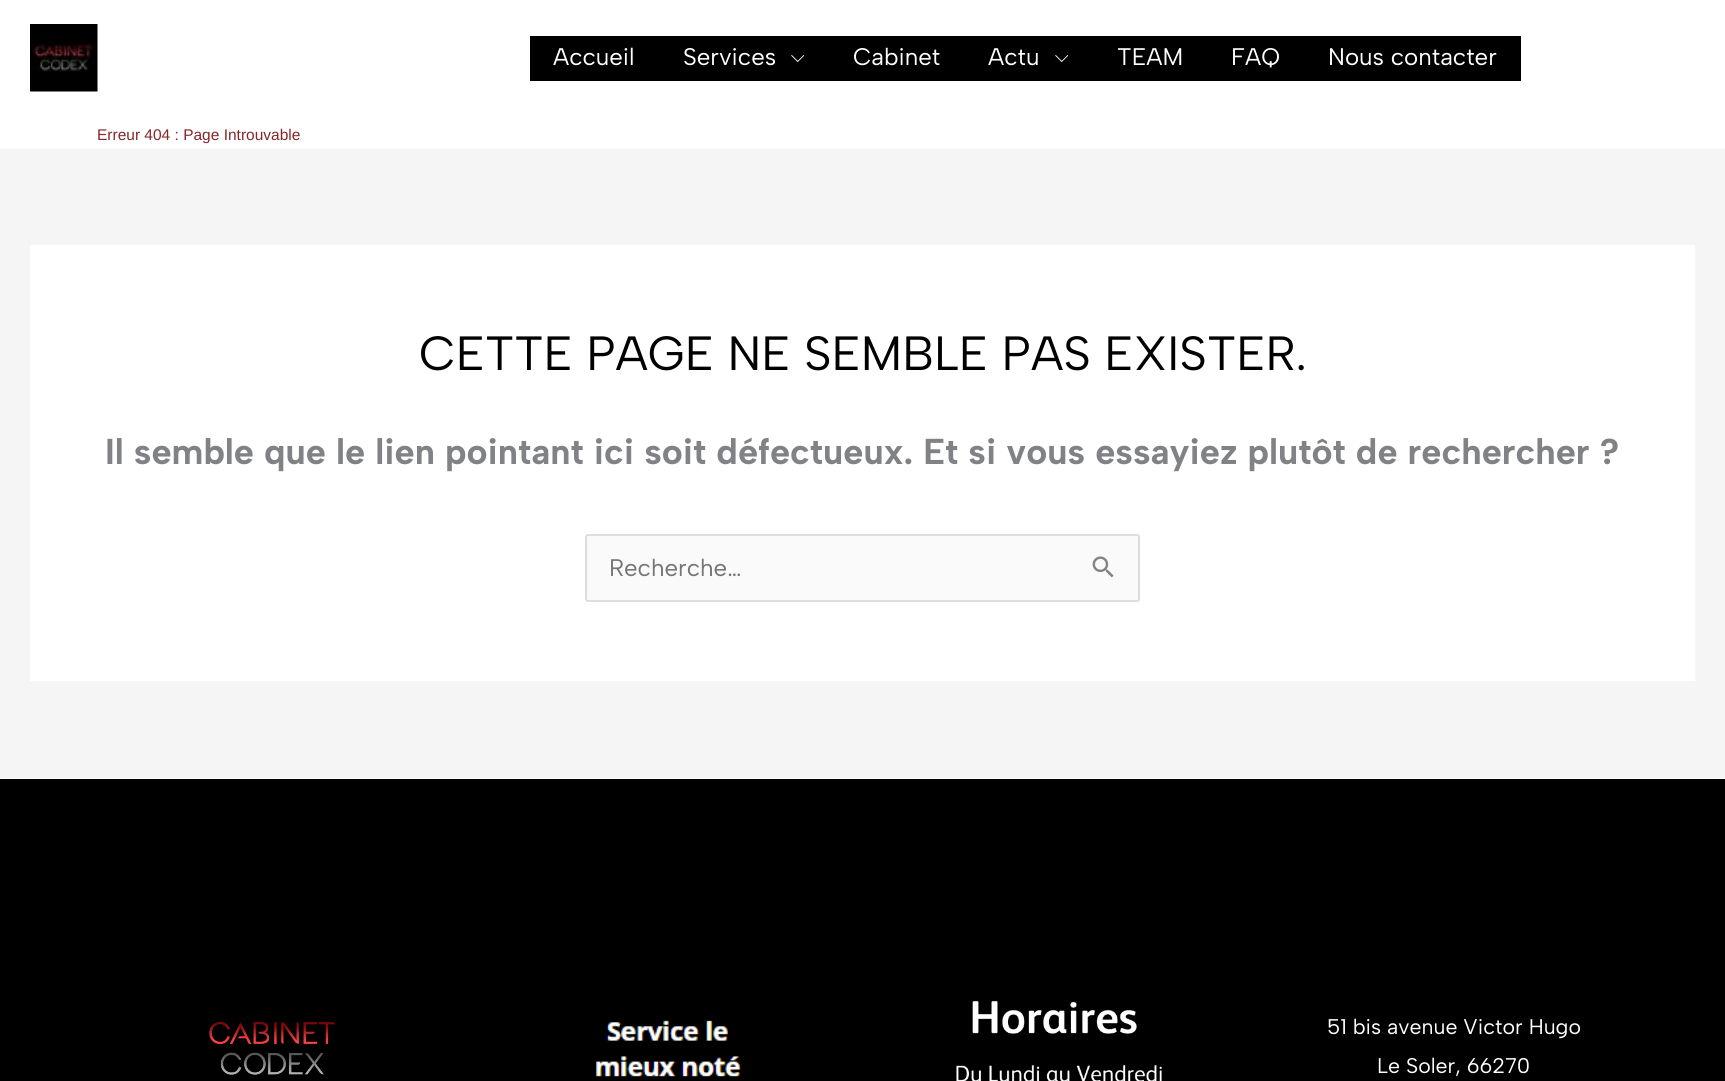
import math
import cairo

surface = cairo.ImageSurface(cairo.FORMAT_RGB24, 1725, 1081)
cr = cairo.Context(surface)
options = cairo.FontOptions()
options.set_hint_metrics(cairo.HINT_METRICS_OFF)
options.set_hint_style(cairo.HINT_STYLE_NONE)
cr.set_font_options(options)
cr.set_miter_limit(4)


def rgb(code):
    cr.set_source_rgb(*(v / 255 for v in bytes.fromhex(code[-6:])))


def rrect(x, y, w, h, r):
    cr.new_sub_path()
    for i, (u, v) in enumerate([(x + w - r, y + h - r), (x + r, y + h - r), (x + r, y + r), (x + w - r, y + r)]):
        cr.arc(u, v, r, i * math.pi / 2, (i + 1) * math.pi / 2)
    cr.close_path()


def image(path, x, y, w, h):
    cr.save()
    cr.set_source_surface(cairo.ImageSurface.create_from_png(path), x, y)
    cr.rectangle(x, y, w, h)
    cr.fill()
    cr.restore()


rgb("#f5f5f5")
cr.paint()
rgb("#ffffff")
cr.rectangle(0, 0, 1725, 149)
cr.fill()
image("img/1.png", 30, 24, 68, 68)
rgb("#000000")
cr.rectangle(530, 36, 991, 45)
cr.fill()
image("img/2.png", 791, 55, 14, 7)
image("img/2.png", 1055, 55, 14, 7)
rgb("#ffffff")
cr.rectangle(30, 245, 1665, 436)
cr.fill()
rgb("#fafafa")
rrect(586, 535, 553, 66, 2)
cr.fill_preserve()
rgb("#dddddd")
cr.stroke()
image("img/3.png", 1092, 556, 22, 22)
rgb("#000000")
cr.rectangle(0, 779, 1725, 302)
cr.fill()
rgb("#f7f9fc")
cr.rectangle(0, 777, 1725, 2)
cr.fill()
image("img/4.png", 209, 1021, 127, 54)
image("img/5.png", 596, 1020, 146, 57)
image("img/6.png", 956, 1000, 206, 81)
cr.select_font_face("Albert Sans")
cr.set_font_size(24)
rgb("#ffffff")
for x, y, s in [
    (553, 65, "Accueil"),
    (683, 65, "Services"),
    (853, 65, "Cabinet"),
    (988, 65, "Actu"),
    (1117, 65, "TEAM"),
    (1231, 65, "FAQ"),
    (1328, 65, "Nous contacter"),
]:
    cr.move_to(x, y)
    cr.show_text(s)
cr.select_font_face("Liberation Sans")
cr.set_font_size(15.5)
rgb("#862727")
cr.move_to(97, 140)
cr.show_text("Erreur 404 : Page Introuvable")
cr.select_font_face("Albert Sans")
cr.set_font_size(48)
rgb("#000000")
cr.move_to(419, 370)
cr.show_text("CETTE PAGE NE SEMBLE PAS EXISTER.")
cr.select_font_face("Albert Sans", cairo.FONT_SLANT_NORMAL, cairo.FONT_WEIGHT_BOLD)
cr.set_font_size(36)
rgb("#808285")
cr.move_to(105, 464)
cr.show_text("Il semble que le lien pointant ici soit défectueux. Et si vous essayiez plutôt de rechercher ?")
cr.select_font_face("Albert Sans")
cr.set_font_size(24)
rgb("#757575")
cr.move_to(609, 576)
cr.show_text("Recherche…")
cr.set_font_size(21.25)
rgb("#ffffff")
cr.move_to(1327, 1034)
cr.show_text("51 bis avenue Victor Hugo")
cr.move_to(1377, 1073)
cr.show_text("Le Soler, 66270")
surface.write_to_png("page.png")
